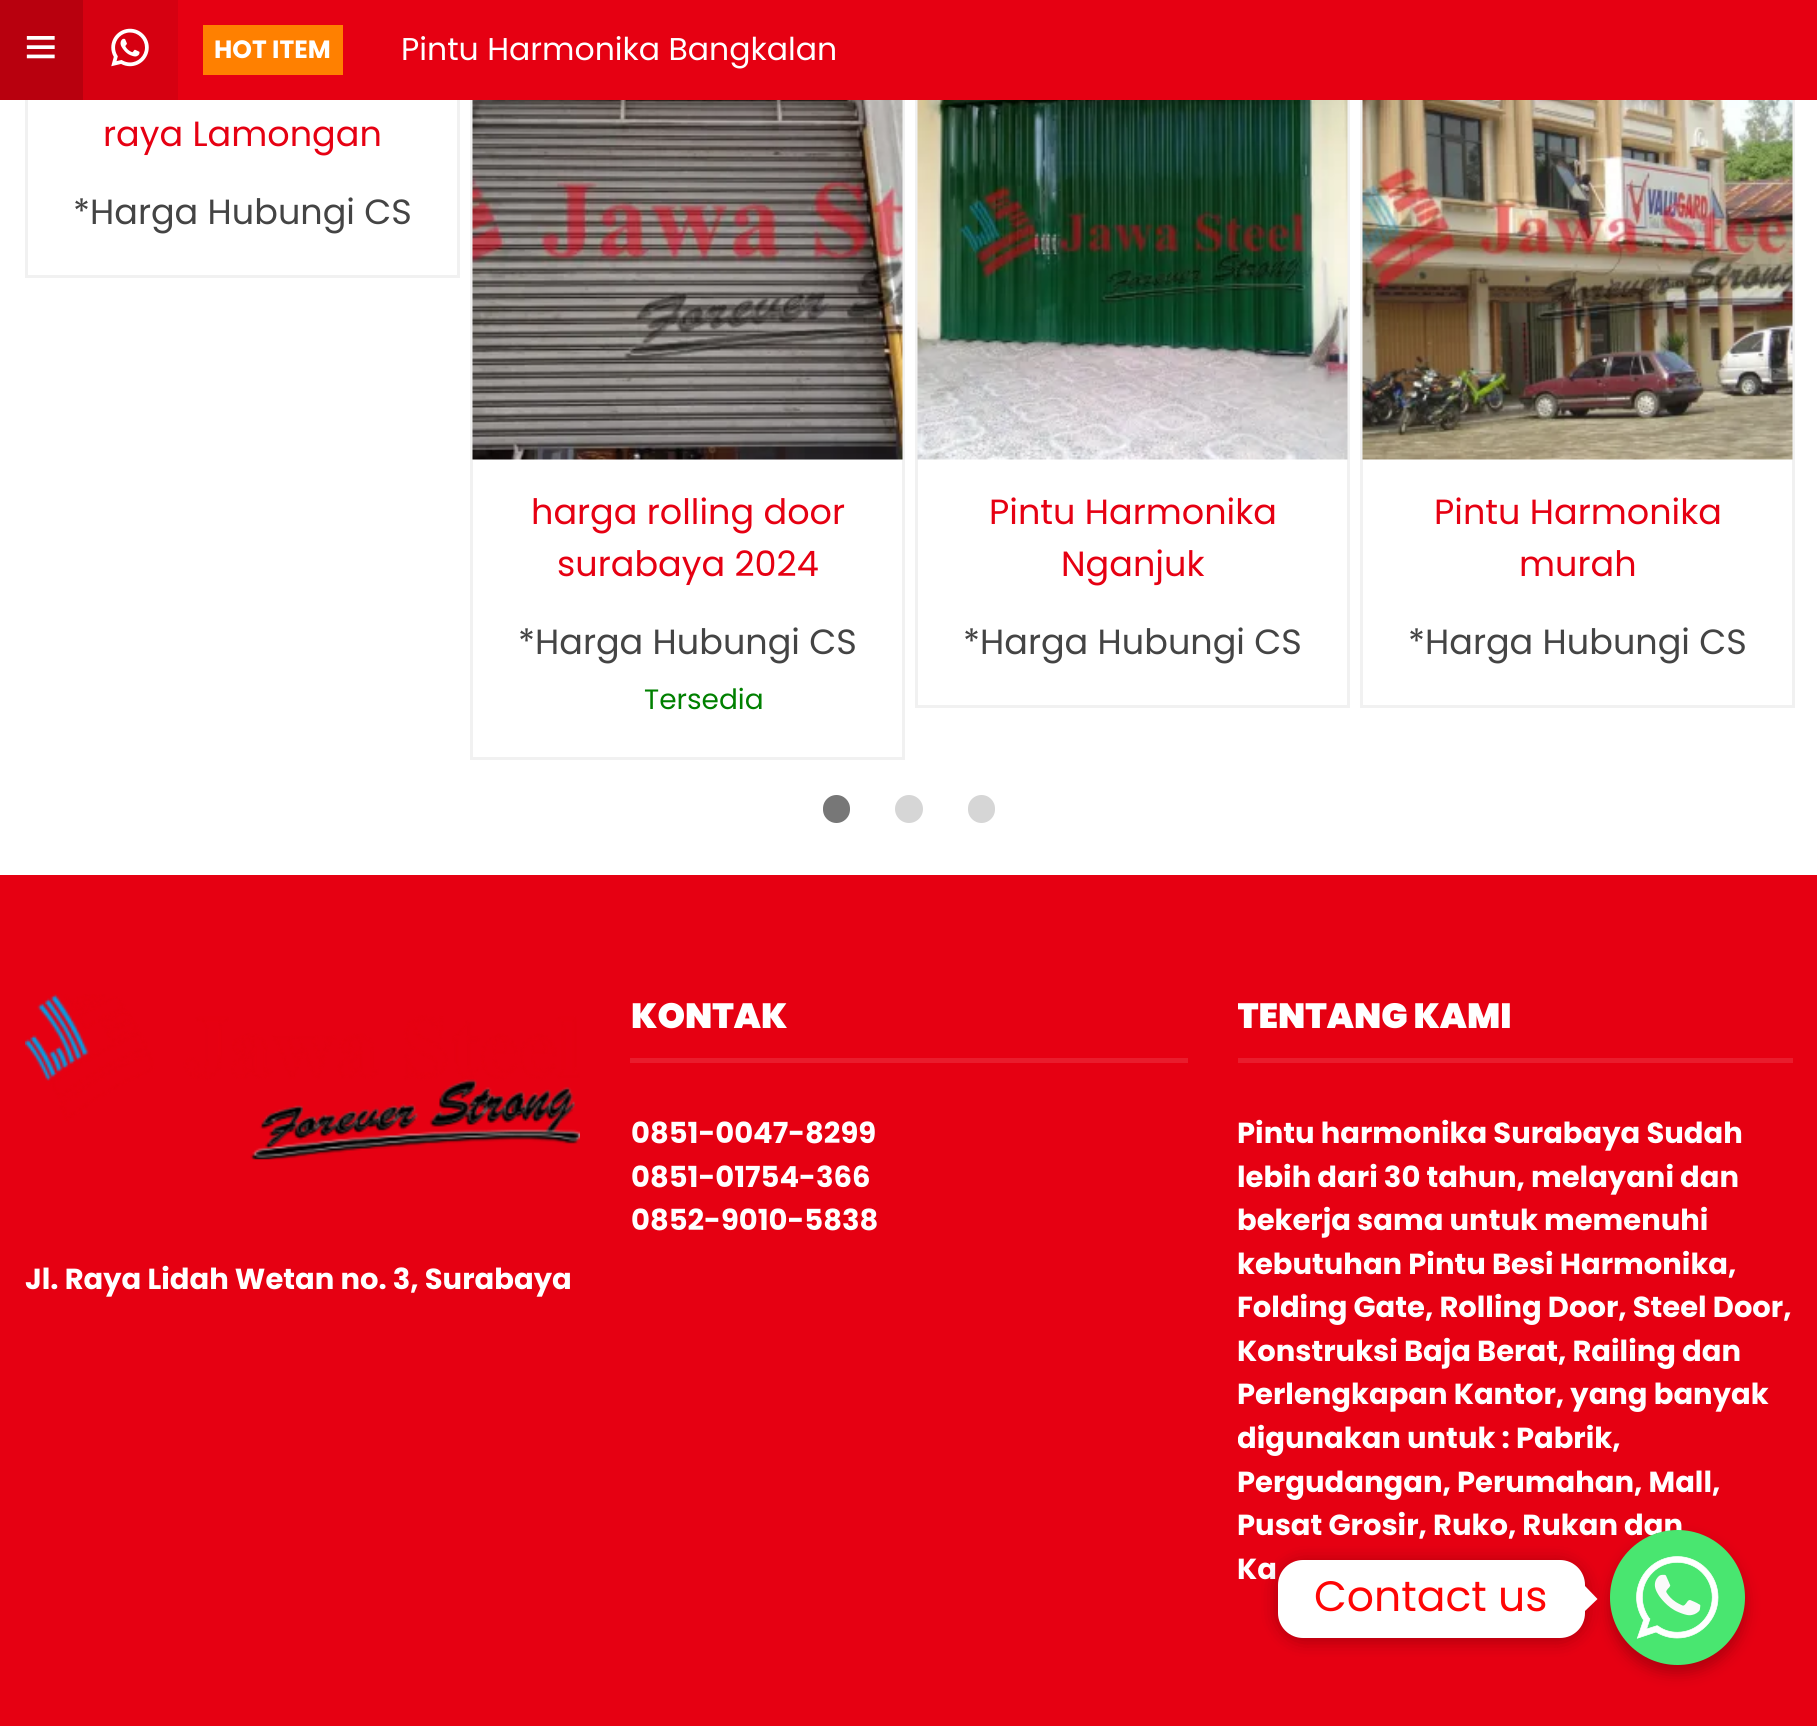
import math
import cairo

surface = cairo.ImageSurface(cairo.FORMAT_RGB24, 1817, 1726)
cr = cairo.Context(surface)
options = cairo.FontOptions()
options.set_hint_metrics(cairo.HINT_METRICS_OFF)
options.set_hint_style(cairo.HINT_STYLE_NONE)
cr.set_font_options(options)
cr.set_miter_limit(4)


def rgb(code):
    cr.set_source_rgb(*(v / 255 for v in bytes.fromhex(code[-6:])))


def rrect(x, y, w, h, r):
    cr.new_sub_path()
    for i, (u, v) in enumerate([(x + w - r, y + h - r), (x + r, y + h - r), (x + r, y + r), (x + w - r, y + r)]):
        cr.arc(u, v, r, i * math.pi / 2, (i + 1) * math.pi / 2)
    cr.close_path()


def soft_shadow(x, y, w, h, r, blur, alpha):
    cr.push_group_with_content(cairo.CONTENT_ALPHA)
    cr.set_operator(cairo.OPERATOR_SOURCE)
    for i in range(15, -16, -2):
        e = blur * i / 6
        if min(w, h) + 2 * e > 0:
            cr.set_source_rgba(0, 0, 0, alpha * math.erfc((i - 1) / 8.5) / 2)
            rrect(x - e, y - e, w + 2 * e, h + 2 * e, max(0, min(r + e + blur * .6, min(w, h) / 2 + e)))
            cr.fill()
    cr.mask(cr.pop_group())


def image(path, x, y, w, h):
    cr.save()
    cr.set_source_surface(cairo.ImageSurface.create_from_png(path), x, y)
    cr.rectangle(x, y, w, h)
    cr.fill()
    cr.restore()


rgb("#ffffff")
cr.paint()
cr.rectangle(26.5, 29.5, 432, 247)
rgb("#f1f1f1")
cr.set_line_width(3)
cr.stroke()
cr.rectangle(471.5, 29.5, 432, 729)
cr.stroke()
cr.rectangle(916.5, 29.5, 432, 677)
cr.stroke()
cr.rectangle(1361.5, 29.5, 432, 677)
cr.stroke()
rgb("#e60012")
cr.rectangle(178, 0, 1639, 100)
cr.fill()
rgb("#b8000e")
cr.rectangle(0, 0, 83, 100)
cr.fill()
image("img/1.png", 26, 36, 29, 23)
rgb("#d60011")
cr.rectangle(83, 0, 95, 100)
cr.fill()
image("img/2.png", 111, 28, 38, 39)
rgb("#ff8000")
cr.rectangle(203, 25, 140, 50)
cr.fill()
image("img/3.png", 472, 100, 431, 360)
image("img/4.png", 917, 100, 431, 360)
image("img/5.png", 1362, 100, 431, 360)
rgb("#777777")
rrect(820.5, 792.5, 32, 33, 16)
cr.fill_preserve()
rgb("#ffffff")
cr.set_line_width(5)
cr.stroke()
rgb("#d6d6d6")
cr.arc(909, 809, 16.5, 0, 2 * math.pi)
cr.fill_preserve()
rgb("#ffffff")
cr.stroke()
rgb("#d6d6d6")
rrect(965.5, 792.5, 32, 33, 16)
cr.fill_preserve()
rgb("#ffffff")
cr.stroke()
rgb("#e60012")
cr.rectangle(0, 875, 1817, 851)
cr.fill()
image("img/6.png", 25, 994, 555, 166)
rgb("#e91c2c")
cr.rectangle(630, 1058, 558, 5)
cr.fill()
cr.rectangle(1238, 1058, 555, 5)
cr.fill()
rgb("#000000")
soft_shadow(1610, 1538, 135, 135, 67.5, 7.5, 0.25)
cr.select_font_face("Poppins", cairo.FONT_SLANT_NORMAL, cairo.FONT_WEIGHT_BOLD)
cr.set_font_size(25)
rgb("#ffffff")
cr.move_to(214, 58)
cr.show_text("HOT ITEM")
cr.select_font_face("Poppins")
cr.set_font_size(31.5)
cr.move_to(401, 60)
cr.show_text("Pintu Harmonika Bangkalan")
cr.set_font_size(35)
rgb("#e60012")
cr.move_to(103, 146)
cr.show_text("raya Lamongan")
rgb("#444444")
cr.move_to(73, 224)
cr.show_text("*Harga Hubungi CS")
rgb("#e60012")
cr.move_to(531, 524)
cr.show_text("harga rolling door")
cr.move_to(557, 576)
cr.show_text("surabaya 2024")
rgb("#444444")
cr.move_to(518, 654)
cr.show_text("*Harga Hubungi CS")
cr.set_font_size(28)
rgb("#008000")
cr.move_to(644, 709)
cr.show_text("Tersedia")
cr.set_font_size(35)
rgb("#e60012")
cr.move_to(989, 524)
cr.show_text("Pintu Harmonika")
cr.move_to(1061, 576)
cr.show_text("Nganjuk")
rgb("#444444")
cr.move_to(963, 654)
cr.show_text("*Harga Hubungi CS")
rgb("#e60012")
cr.move_to(1434, 524)
cr.show_text("Pintu Harmonika")
cr.move_to(1519, 576)
cr.show_text("murah")
rgb("#444444")
cr.move_to(1408, 654)
cr.show_text("*Harga Hubungi CS")
cr.select_font_face("Poppins", cairo.FONT_SLANT_NORMAL, cairo.FONT_WEIGHT_BOLD)
cr.set_font_size(29)
rgb("#ffffff")
cr.move_to(25, 1289)
cr.show_text("Jl. Raya Lidah Wetan no. 3, Surabaya")
cr.select_font_face("Poppins Black")
cr.set_font_size(35)
cr.move_to(631, 1028)
cr.show_text("KONTAK")
cr.select_font_face("Poppins", cairo.FONT_SLANT_NORMAL, cairo.FONT_WEIGHT_BOLD)
cr.set_font_size(29)
for x, y, s in [
    (631, 1143, "0851-0047-8299"),
    (631, 1187, "0851-01754-366"),
    (631, 1230, "0852-9010-5838"),
]:
    cr.move_to(x, y)
    cr.show_text(s)
cr.save()
cr.rectangle(1238, 975, 555, 665)
cr.clip()
cr.select_font_face("Poppins Black")
cr.set_font_size(35)
cr.move_to(1237, 1028)
cr.show_text("TENTANG KAMI")
cr.restore()
for x, y, s in [
    (1237, 1143, "Pintu harmonika Surabaya Sudah"),
    (1237, 1187, "lebih dari 30 tahun, melayani dan"),
    (1237, 1230, "bekerja sama untuk memenuhi"),
    (1237, 1274, "kebutuhan Pintu Besi Harmonika,"),
    (1237, 1317, "Folding Gate, Rolling Door, Steel Door,"),
    (1237, 1361, "Konstruksi Baja Berat, Railing dan"),
    (1237, 1404, "Perlengkapan Kantor, yang banyak"),
]:
    cr.move_to(x, y)
    cr.show_text(s)
cr.save()
cr.rectangle(1238, 975, 555, 665)
cr.clip()
cr.move_to(1237, 1448)
cr.show_text("digunakan untuk : Pabrik,")
cr.restore()
for x, y, s in [
    (1237, 1492, "Pergudangan, Perumahan, Mall,"),
    (1237, 1535, "Pusat Grosir, Ruko, Rukan dan"),
    (1237, 1579, "Ka"),
]:
    cr.move_to(x, y)
    cr.show_text(s)
image("img/7.png", 1610, 1530, 135, 135)
rgb("#000000")
soft_shadow(1278, 1563, 307, 77, 25, 9.5, 0.15)
soft_shadow(1278, 1563, 307, 77, 25, 9.5, 0.15)
rgb("#ffffff")
rrect(1278, 1560, 307, 78, 25)
cr.fill()
cr.select_font_face("Poppins")
cr.set_font_size(42.5)
rgb("#ff0505")
cr.move_to(1314, 1611)
cr.show_text("Contact us")
rgb("#ffffff")
cr.new_path()
cr.move_to(1585, 1611)
cr.line_to(1585, 1586)
cr.line_to(1597.5, 1599)
cr.close_path()
cr.fill()
surface.write_to_png("page.png")
